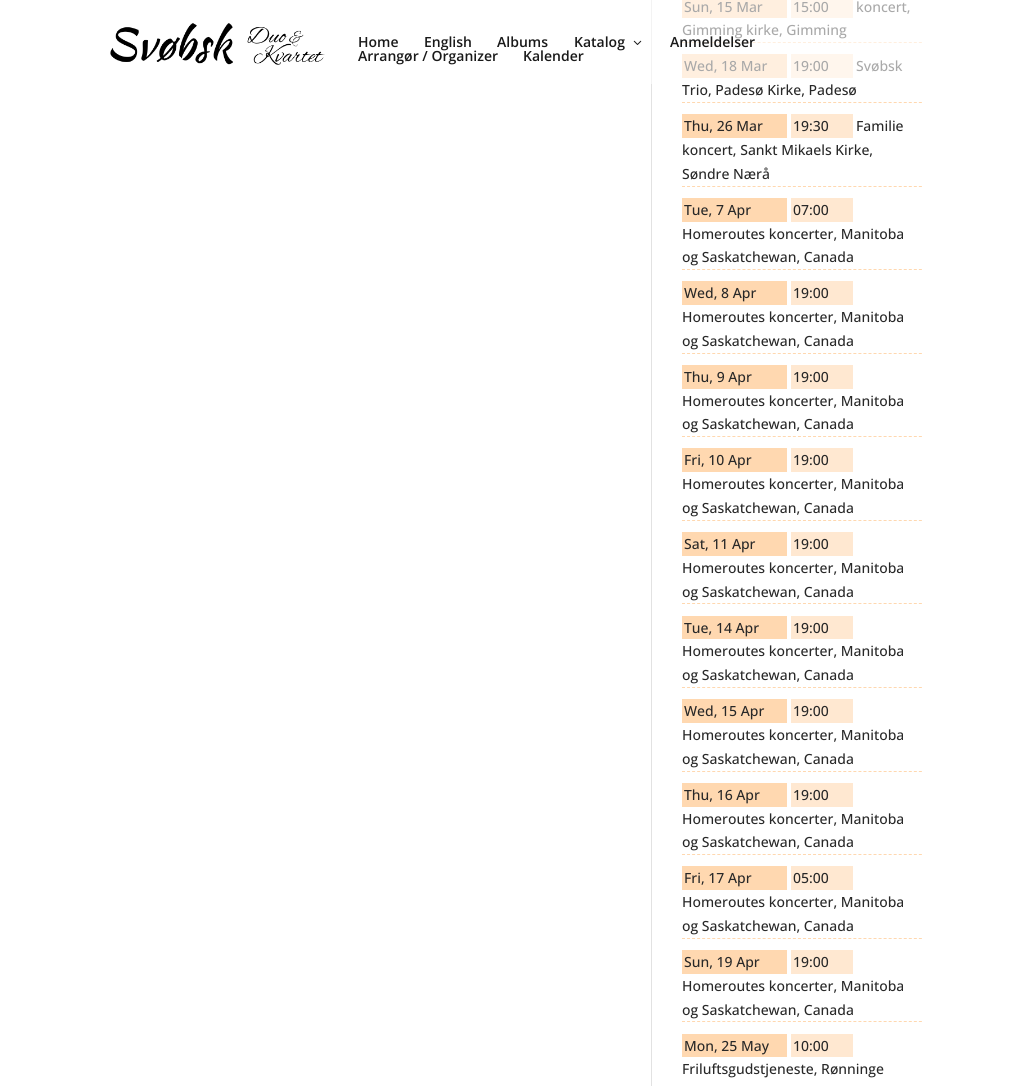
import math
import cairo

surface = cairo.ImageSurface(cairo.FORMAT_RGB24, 1025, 1086)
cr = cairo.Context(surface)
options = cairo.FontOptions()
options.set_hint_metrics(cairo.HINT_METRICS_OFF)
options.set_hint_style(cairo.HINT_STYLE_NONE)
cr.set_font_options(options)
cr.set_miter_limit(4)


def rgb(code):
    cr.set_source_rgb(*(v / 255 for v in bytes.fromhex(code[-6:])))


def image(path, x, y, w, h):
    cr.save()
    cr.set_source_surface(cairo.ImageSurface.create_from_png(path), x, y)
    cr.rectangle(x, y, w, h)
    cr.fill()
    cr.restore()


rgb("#ffffff")
cr.paint()
image("img/1.png", 110, 23, 215, 42)
image("img/2.png", 633, 40, 9, 5)
rgb("#e2e2e2")
cr.rectangle(651, 84, 1, 1002)
cr.fill()
rgb("#f3f3f3")
cr.rectangle(651, 0, 1, 84)
cr.fill()
cr.new_path()
cr.move_to(682, 42.5)
cr.line_to(922, 42.5)
rgb("#ffefdf")
cr.set_line_width(1)
cr.set_dash([3, 2.04])
cr.stroke()
cr.rectangle(682, 0, 105, 18)
cr.fill()
rgb("#fff6ed")
cr.rectangle(791, 0, 62, 18)
cr.fill()
cr.new_path()
cr.move_to(682, 102.5)
cr.line_to(922, 102.5)
rgb("#ffd8b0")
cr.stroke()
rgb("#ffefdf")
cr.rectangle(682, 54, 105, 24)
cr.fill()
rgb("#fff6ed")
cr.rectangle(791, 54, 62, 24)
cr.fill()
cr.new_path()
cr.move_to(682, 186.5)
cr.line_to(922, 186.5)
rgb("#ffd8b0")
cr.stroke()
cr.rectangle(682, 114, 105, 24)
cr.fill()
rgb("#ffe8d1")
cr.rectangle(791, 114, 62, 24)
cr.fill()
cr.new_path()
cr.move_to(682, 269.5)
cr.line_to(922, 269.5)
rgb("#ffd8b0")
cr.stroke()
cr.rectangle(682, 198, 105, 24)
cr.fill()
rgb("#ffe8d1")
cr.rectangle(791, 198, 62, 24)
cr.fill()
cr.new_path()
cr.move_to(682, 353.5)
cr.line_to(922, 353.5)
rgb("#ffd8b0")
cr.stroke()
cr.rectangle(682, 281, 105, 24)
cr.fill()
rgb("#ffe8d1")
cr.rectangle(791, 281, 62, 24)
cr.fill()
cr.new_path()
cr.move_to(682, 436.5)
cr.line_to(922, 436.5)
rgb("#ffd8b0")
cr.stroke()
cr.rectangle(682, 365, 105, 24)
cr.fill()
rgb("#ffe8d1")
cr.rectangle(791, 365, 62, 24)
cr.fill()
cr.new_path()
cr.move_to(682, 520.5)
cr.line_to(922, 520.5)
rgb("#ffd8b0")
cr.stroke()
cr.rectangle(682, 448, 105, 24)
cr.fill()
rgb("#ffe8d1")
cr.rectangle(791, 448, 62, 24)
cr.fill()
cr.new_path()
cr.move_to(682, 603.5)
cr.line_to(922, 603.5)
rgb("#ffd8b0")
cr.stroke()
cr.rectangle(682, 532, 105, 24)
cr.fill()
rgb("#ffe8d1")
cr.rectangle(791, 532, 62, 24)
cr.fill()
cr.new_path()
cr.move_to(682, 687.5)
cr.line_to(922, 687.5)
rgb("#ffd8b0")
cr.stroke()
cr.rectangle(682, 616, 105, 23)
cr.fill()
rgb("#ffe8d1")
cr.rectangle(791, 616, 62, 23)
cr.fill()
cr.new_path()
cr.move_to(682, 771.5)
cr.line_to(922, 771.5)
rgb("#ffd8b0")
cr.stroke()
cr.rectangle(682, 699, 105, 24)
cr.fill()
rgb("#ffe8d1")
cr.rectangle(791, 699, 62, 24)
cr.fill()
cr.new_path()
cr.move_to(682, 854.5)
cr.line_to(922, 854.5)
rgb("#ffd8b0")
cr.stroke()
cr.rectangle(682, 783, 105, 24)
cr.fill()
rgb("#ffe8d1")
cr.rectangle(791, 783, 62, 24)
cr.fill()
cr.new_path()
cr.move_to(682, 938.5)
cr.line_to(922, 938.5)
rgb("#ffd8b0")
cr.stroke()
cr.rectangle(682, 866, 105, 24)
cr.fill()
rgb("#ffe8d1")
cr.rectangle(791, 866, 62, 24)
cr.fill()
cr.new_path()
cr.move_to(682, 1021.5)
cr.line_to(922, 1021.5)
rgb("#ffd8b0")
cr.stroke()
for x, y, w, h, color in [
    (682, 950, 105, 24, "#ffd8b0"),
    (791, 950, 62, 24, "#ffe8d1"),
    (682, 1034, 105, 23, "#ffd8b0"),
    (791, 1034, 62, 23, "#ffe8d1"),
]:
    rgb(color)
    cr.rectangle(x, y, w, h)
    cr.fill()
cr.select_font_face("Open Sans SemiBold")
cr.set_font_size(14)
rgb("#191919")
for x, y, s in [
    (358, 47, "Home"),
    (424, 47, "English"),
    (497, 47, "Albums"),
    (574, 47, "Katalog"),
    (670, 47, "Anmeldelser"),
    (358, 61, "Arrangør / Organizer"),
    (523, 61, "Kalender"),
]:
    cr.move_to(x, y)
    cr.show_text(s)
cr.select_font_face("Open Sans Medium")
rgb("#a9a9a9")
for x, y, s in [
    (684, 12, "Sun, 15 Mar"),
    (793, 12, "15:00"),
    (856, 12, "koncert,"),
    (682, 35, "Gimming kirke, Gimming"),
    (684, 71, "Wed, 18 Mar"),
    (793, 71, "19:00"),
    (856, 71, "Svøbsk"),
]:
    cr.move_to(x, y)
    cr.show_text(s)
rgb("#282828")
for x, y, s in [
    (682, 95, "Trio, Padesø Kirke, Padesø"),
    (684, 131, "Thu, 26 Mar"),
    (793, 131, "19:30"),
    (856, 131, "Familie"),
    (682, 155, "koncert, Sankt Mikaels Kirke,"),
    (682, 179, "Søndre Nærå"),
    (684, 215, "Tue, 7 Apr"),
    (793, 215, "07:00"),
    (682, 239, "Homeroutes koncerter, Manitoba"),
    (682, 262, "og Saskatchewan, Canada"),
    (684, 298, "Wed, 8 Apr"),
    (793, 298, "19:00"),
    (682, 322, "Homeroutes koncerter, Manitoba"),
    (682, 346, "og Saskatchewan, Canada"),
    (684, 382, "Thu, 9 Apr"),
    (793, 382, "19:00"),
    (682, 406, "Homeroutes koncerter, Manitoba"),
    (682, 429, "og Saskatchewan, Canada"),
    (684, 465, "Fri, 10 Apr"),
    (793, 465, "19:00"),
    (682, 489, "Homeroutes koncerter, Manitoba"),
    (682, 513, "og Saskatchewan, Canada"),
    (684, 549, "Sat, 11 Apr"),
    (793, 549, "19:00"),
    (682, 573, "Homeroutes koncerter, Manitoba"),
    (682, 597, "og Saskatchewan, Canada"),
    (684, 633, "Tue, 14 Apr"),
    (793, 633, "19:00"),
    (682, 656, "Homeroutes koncerter, Manitoba"),
    (682, 680, "og Saskatchewan, Canada"),
    (684, 716, "Wed, 15 Apr"),
    (793, 716, "19:00"),
    (682, 740, "Homeroutes koncerter, Manitoba"),
    (682, 764, "og Saskatchewan, Canada"),
    (684, 800, "Thu, 16 Apr"),
    (793, 800, "19:00"),
    (682, 824, "Homeroutes koncerter, Manitoba"),
    (682, 847, "og Saskatchewan, Canada"),
    (684, 883, "Fri, 17 Apr"),
    (793, 883, "05:00"),
    (682, 907, "Homeroutes koncerter, Manitoba"),
    (682, 931, "og Saskatchewan, Canada"),
    (684, 967, "Sun, 19 Apr"),
    (793, 967, "19:00"),
    (682, 991, "Homeroutes koncerter, Manitoba"),
    (682, 1015, "og Saskatchewan, Canada"),
    (684, 1051, "Mon, 25 May"),
    (793, 1051, "10:00"),
    (682, 1074, "Friluftsgudstjeneste, Rønninge"),
]:
    cr.move_to(x, y)
    cr.show_text(s)
surface.write_to_png("page.png")
